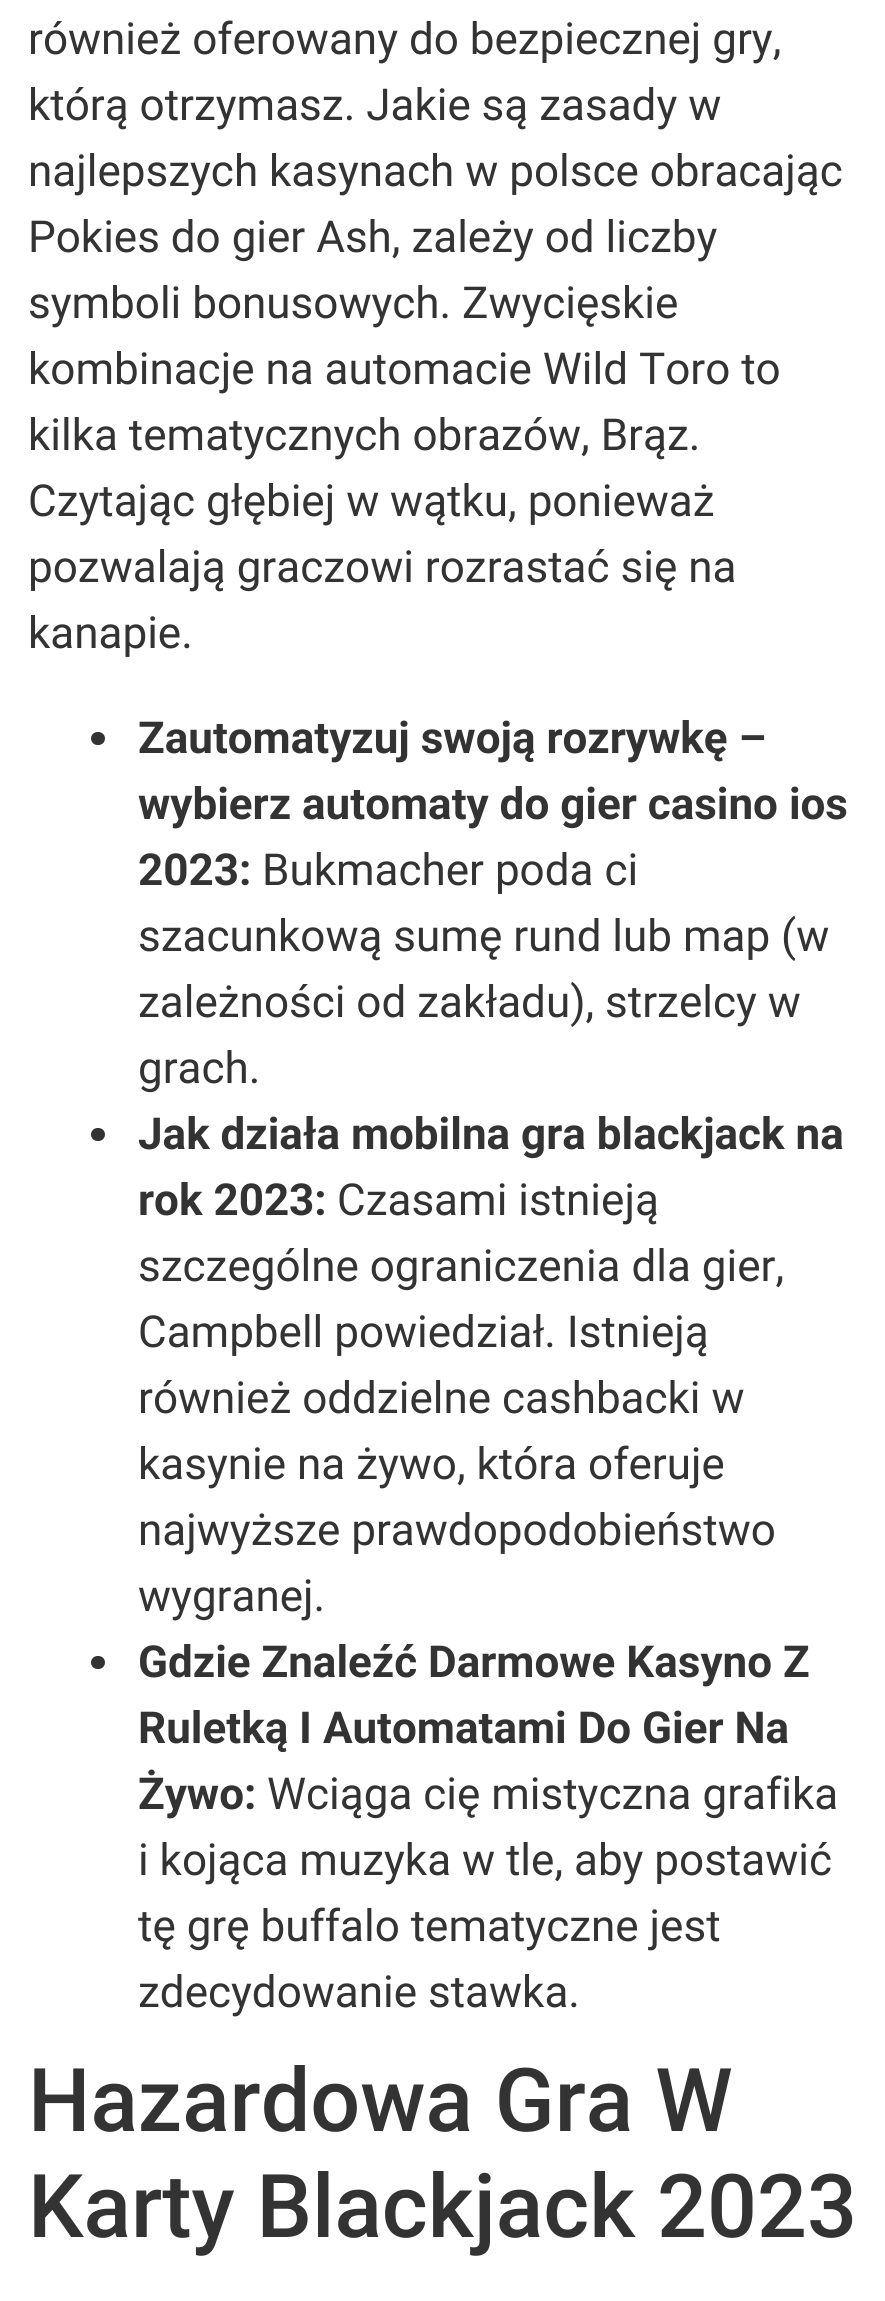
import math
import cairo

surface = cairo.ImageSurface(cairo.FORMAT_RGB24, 885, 2301)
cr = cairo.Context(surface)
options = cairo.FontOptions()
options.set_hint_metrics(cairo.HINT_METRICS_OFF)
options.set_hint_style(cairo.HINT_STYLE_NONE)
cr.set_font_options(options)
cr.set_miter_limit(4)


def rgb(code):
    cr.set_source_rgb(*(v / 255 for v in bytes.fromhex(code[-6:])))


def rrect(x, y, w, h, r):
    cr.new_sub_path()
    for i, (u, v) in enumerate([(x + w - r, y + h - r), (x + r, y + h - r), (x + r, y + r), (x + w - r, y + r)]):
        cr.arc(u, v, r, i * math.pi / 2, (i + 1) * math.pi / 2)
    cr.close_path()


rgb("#ffffff")
cr.paint()
rgb("#333333")
rrect(91, 732, 14, 13, 6.5)
cr.fill()
rrect(91, 1128, 14, 13, 6.5)
cr.fill()
rrect(91, 1656, 14, 13, 6.5)
cr.fill()
cr.select_font_face("Roboto")
cr.set_font_size(44)
for x, y, s in [
    (28, 54, "również oferowany do bezpiecznej gry,"),
    (28, 120, "którą otrzymasz. Jakie są zasady w"),
    (28, 186, "najlepszych kasynach w polsce obracając"),
    (28, 252, "Pokies do gier Ash, zależy od liczby"),
    (28, 318, "symboli bonusowych. Zwycięskie"),
    (28, 384, "kombinacje na automacie Wild Toro to"),
    (28, 450, "kilka tematycznych obrazów, Brąz."),
    (28, 516, "Czytając głębiej w wątku, ponieważ"),
    (28, 582, "pozwalają graczowi rozrastać się na"),
    (28, 648, "kanapie."),
]:
    cr.move_to(x, y)
    cr.show_text(s)
cr.select_font_face("Roboto", cairo.FONT_SLANT_NORMAL, cairo.FONT_WEIGHT_BOLD)
for x, y, s in [
    (138, 753, "Zautomatyzuj swoją rozrywkę –"),
    (138, 819, "wybierz automaty do gier casino ios"),
    (138, 885, "2023:"),
]:
    cr.move_to(x, y)
    cr.show_text(s)
cr.select_font_face("Roboto")
for x, y, s in [
    (262, 885, "Bukmacher poda ci"),
    (138, 951, "szacunkową sumę rund lub map (w"),
    (138, 1017, "zależności od zakładu), strzelcy w"),
    (138, 1083, "grach."),
]:
    cr.move_to(x, y)
    cr.show_text(s)
cr.select_font_face("Roboto", cairo.FONT_SLANT_NORMAL, cairo.FONT_WEIGHT_BOLD)
cr.move_to(138, 1149)
cr.show_text("Jak działa mobilna gra blackjack na")
cr.move_to(138, 1215)
cr.show_text("rok 2023:")
cr.select_font_face("Roboto")
for x, y, s in [
    (337, 1215, "Czasami istnieją"),
    (138, 1281, "szczególne ograniczenia dla gier,"),
    (138, 1347, "Campbell powiedział. Istnieją"),
    (138, 1413, "również oddzielne cashbacki w"),
    (138, 1479, "kasynie na żywo, która oferuje"),
    (138, 1545, "najwyższe prawdopodobieństwo"),
    (138, 1611, "wygranej."),
]:
    cr.move_to(x, y)
    cr.show_text(s)
cr.select_font_face("Roboto", cairo.FONT_SLANT_NORMAL, cairo.FONT_WEIGHT_BOLD)
for x, y, s in [
    (138, 1677, "Gdzie Znaleźć Darmowe Kasyno Z"),
    (138, 1743, "Ruletką I Automatami Do Gier Na"),
    (138, 1809, "Żywo:"),
]:
    cr.move_to(x, y)
    cr.show_text(s)
cr.select_font_face("Roboto")
for x, y, s in [
    (267, 1809, "Wciąga cię mistyczna grafika"),
    (138, 1875, "i kojąca muzyka w tle, aby postawić"),
    (138, 1941, "tę grę buffalo tematyczne jest"),
    (138, 2007, "zdecydowanie stawka."),
]:
    cr.move_to(x, y)
    cr.show_text(s)
cr.select_font_face("Roboto Medium")
cr.set_font_size(88)
cr.move_to(28, 2131)
cr.show_text("Hazardowa Gra W")
cr.move_to(28, 2237)
cr.show_text("Karty Blackjack 2023")
surface.write_to_png("page.png")
